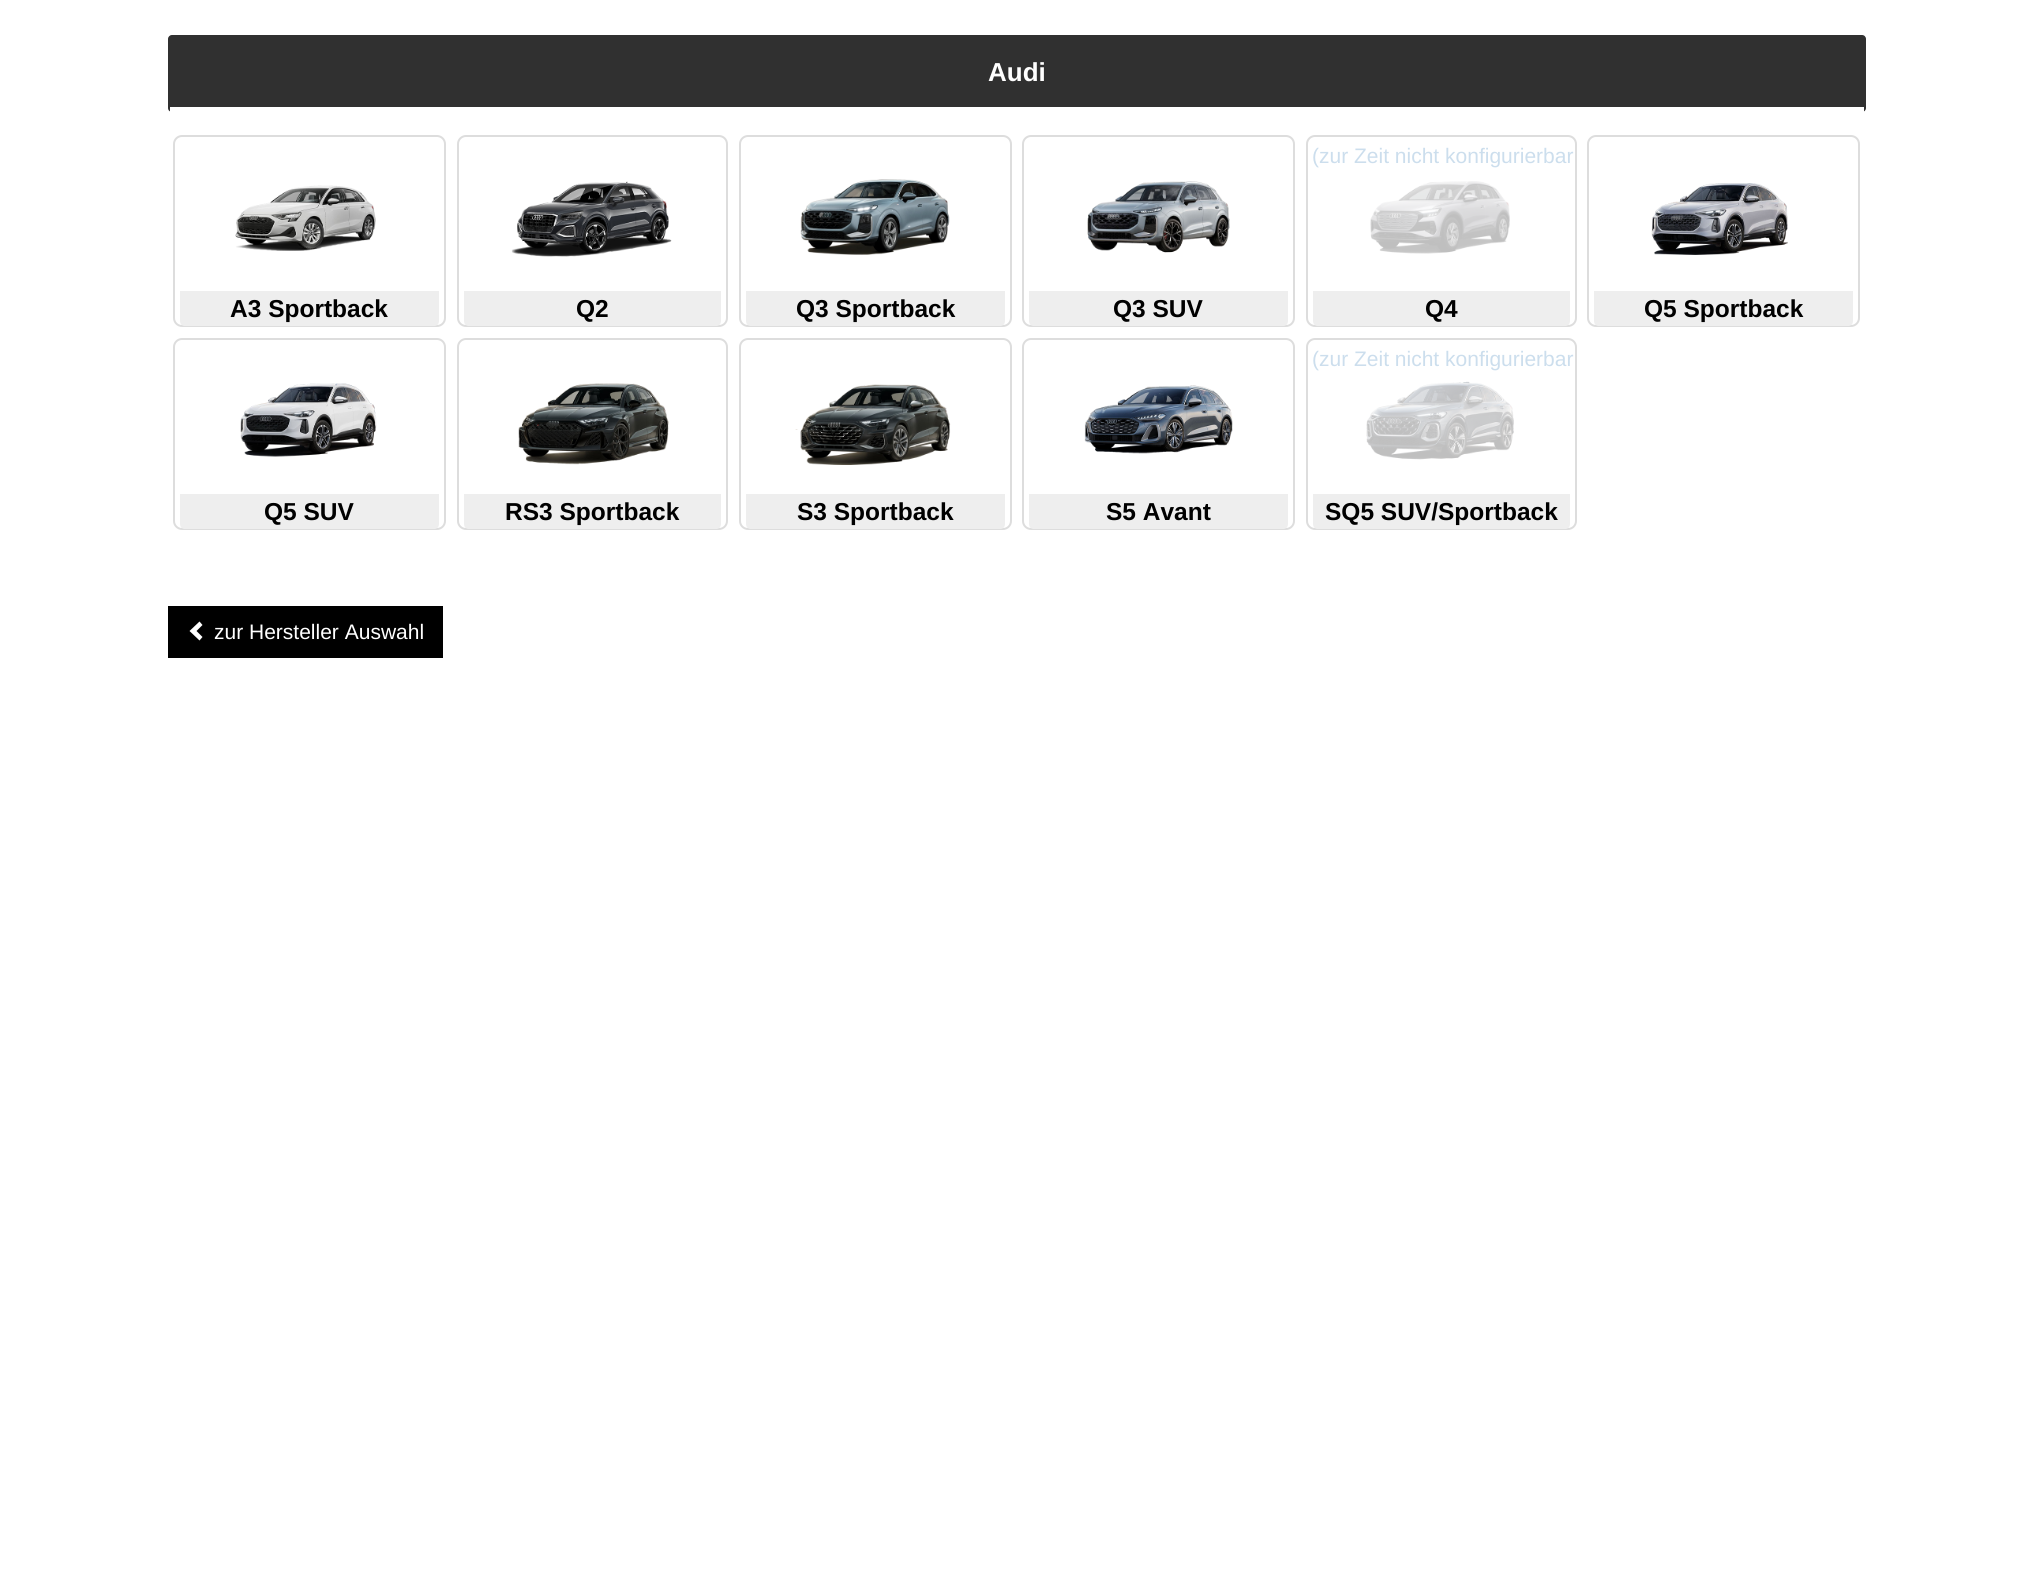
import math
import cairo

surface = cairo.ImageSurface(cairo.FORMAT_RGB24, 2032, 1572)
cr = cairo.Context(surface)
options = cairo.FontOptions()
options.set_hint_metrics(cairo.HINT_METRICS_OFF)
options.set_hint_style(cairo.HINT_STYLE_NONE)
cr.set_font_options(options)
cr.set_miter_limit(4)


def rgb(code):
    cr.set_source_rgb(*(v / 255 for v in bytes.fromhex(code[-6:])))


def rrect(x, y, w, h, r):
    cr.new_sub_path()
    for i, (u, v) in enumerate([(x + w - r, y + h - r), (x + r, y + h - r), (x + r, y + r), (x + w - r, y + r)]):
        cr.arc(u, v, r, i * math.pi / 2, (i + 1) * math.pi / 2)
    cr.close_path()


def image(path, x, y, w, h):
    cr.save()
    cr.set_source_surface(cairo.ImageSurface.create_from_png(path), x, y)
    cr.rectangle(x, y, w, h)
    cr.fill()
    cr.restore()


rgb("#ffffff")
cr.paint()
rgb("#303030")
rrect(168, 35, 1698, 77, 4)
cr.fill()
rgb("#ffffff")
cr.rectangle(170, 107, 1694, 5)
cr.fill()
rrect(174, 136, 271, 190, 8)
rgb("#dddddd")
cr.stroke()
image("img/1.png", 235, 185, 141, 66)
rgb("#eeeeee")
cr.new_path()
cr.move_to(180, 291)
cr.line_to(439, 291)
cr.line_to(439, 321)
cr.curve_to(439, 324, 437, 326, 434, 326)
cr.line_to(185, 326)
cr.curve_to(182, 326, 180, 324, 180, 321)
cr.close_path()
cr.fill()
rrect(458, 136, 269, 190, 8)
rgb("#dddddd")
cr.stroke()
image("img/2.png", 511, 181, 161, 76)
rgb("#eeeeee")
cr.new_path()
cr.move_to(464, 291)
cr.line_to(721, 291)
cr.line_to(721, 321)
cr.curve_to(721, 324, 719, 326, 716, 326)
cr.line_to(469, 326)
cr.curve_to(466, 326, 464, 324, 464, 321)
cr.close_path()
cr.fill()
rrect(740, 136, 271, 190, 8)
rgb("#dddddd")
cr.stroke()
image("img/3.png", 800, 179, 150, 76)
rgb("#eeeeee")
cr.new_path()
cr.move_to(746, 291)
cr.line_to(1005, 291)
cr.line_to(1005, 321)
cr.curve_to(1005, 324, 1003, 326, 1000, 326)
cr.line_to(751, 326)
cr.curve_to(748, 326, 746, 324, 746, 321)
cr.close_path()
cr.fill()
rrect(1023, 136, 271, 190, 8)
rgb("#dddddd")
cr.stroke()
image("img/4.png", 1087, 181, 143, 72)
rgb("#eeeeee")
cr.new_path()
cr.move_to(1029, 291)
cr.line_to(1288, 291)
cr.line_to(1288, 321)
cr.curve_to(1288, 324, 1286, 326, 1283, 326)
cr.line_to(1034, 326)
cr.curve_to(1031, 326, 1029, 324, 1029, 321)
cr.close_path()
cr.fill()
rrect(1307, 136, 269, 190, 8)
rgb("#dddddd")
cr.stroke()
image("img/5.png", 1370, 181, 140, 73)
rgb("#eeeeee")
cr.new_path()
cr.move_to(1313, 291)
cr.line_to(1570, 291)
cr.line_to(1570, 321)
cr.curve_to(1570, 324, 1568, 326, 1565, 326)
cr.line_to(1318, 326)
cr.curve_to(1315, 326, 1313, 324, 1313, 321)
cr.close_path()
cr.fill()
rrect(1588, 136, 271, 190, 8)
rgb("#dddddd")
cr.stroke()
image("img/6.png", 1651, 183, 137, 72)
rgb("#eeeeee")
cr.new_path()
cr.move_to(1594, 291)
cr.line_to(1853, 291)
cr.line_to(1853, 321)
cr.curve_to(1853, 324, 1851, 326, 1848, 326)
cr.line_to(1599, 326)
cr.curve_to(1596, 326, 1594, 324, 1594, 321)
cr.close_path()
cr.fill()
rrect(174, 339, 271, 190, 8)
rgb("#dddddd")
cr.stroke()
image("img/7.png", 240, 383, 137, 74)
rgb("#eeeeee")
cr.new_path()
cr.move_to(180, 494)
cr.line_to(439, 494)
cr.line_to(439, 524)
cr.curve_to(439, 527, 437, 529, 434, 529)
cr.line_to(185, 529)
cr.curve_to(182, 529, 180, 527, 180, 524)
cr.close_path()
cr.fill()
rrect(458, 339, 269, 190, 8)
rgb("#dddddd")
cr.stroke()
image("img/8.png", 518, 383, 151, 82)
rgb("#eeeeee")
cr.new_path()
cr.move_to(464, 494)
cr.line_to(721, 494)
cr.line_to(721, 524)
cr.curve_to(721, 527, 719, 529, 716, 529)
cr.line_to(469, 529)
cr.curve_to(466, 529, 464, 527, 464, 524)
cr.close_path()
cr.fill()
rrect(740, 339, 271, 190, 8)
rgb("#dddddd")
cr.stroke()
image("img/9.png", 795, 384, 156, 81)
rgb("#eeeeee")
cr.new_path()
cr.move_to(746, 494)
cr.line_to(1005, 494)
cr.line_to(1005, 524)
cr.curve_to(1005, 527, 1003, 529, 1000, 529)
cr.line_to(751, 529)
cr.curve_to(748, 529, 746, 527, 746, 524)
cr.close_path()
cr.fill()
rrect(1023, 339, 271, 190, 8)
rgb("#dddddd")
cr.stroke()
image("img/10.png", 1084, 385, 149, 69)
rgb("#eeeeee")
cr.new_path()
cr.move_to(1029, 494)
cr.line_to(1288, 494)
cr.line_to(1288, 524)
cr.curve_to(1288, 527, 1286, 529, 1283, 529)
cr.line_to(1034, 529)
cr.curve_to(1031, 529, 1029, 527, 1029, 524)
cr.close_path()
cr.fill()
rrect(1307, 339, 269, 190, 8)
rgb("#dddddd")
cr.stroke()
image("img/11.png", 1366, 381, 148, 79)
rgb("#eeeeee")
cr.new_path()
cr.move_to(1313, 494)
cr.line_to(1570, 494)
cr.line_to(1570, 524)
cr.curve_to(1570, 527, 1568, 529, 1565, 529)
cr.line_to(1318, 529)
cr.curve_to(1315, 529, 1313, 527, 1313, 524)
cr.close_path()
cr.fill()
rgb("#000000")
cr.rectangle(168, 606, 275, 52)
cr.fill()
rgb("#ffffff")
cr.new_path()
cr.move_to(202.5, 625)
cr.line_to(196.5, 631)
cr.line_to(202.5, 637)
cr.line_to(199.5, 640.5)
cr.line_to(189.5, 631)
cr.line_to(199.5, 621.5)
cr.close_path()
cr.fill()
cr.select_font_face("Liberation Sans", cairo.FONT_SLANT_NORMAL, cairo.FONT_WEIGHT_BOLD)
cr.set_font_size(26)
cr.move_to(988, 81)
cr.show_text("Audi")
cr.set_font_size(24.5)
rgb("#000000")
for x, y, s in [
    (230, 317, "A3 Sportback"),
    (576, 317, "Q2"),
    (796, 317, "Q3 Sportback"),
    (1113, 317, "Q3 SUV"),
]:
    cr.move_to(x, y)
    cr.show_text(s)
cr.select_font_face("Liberation Sans")
cr.set_font_size(21)
rgb("#ccdeed")
cr.move_to(1312, 163)
cr.show_text("(zur Zeit nicht konfigurierbar")
cr.select_font_face("Liberation Sans", cairo.FONT_SLANT_NORMAL, cairo.FONT_WEIGHT_BOLD)
cr.set_font_size(24.5)
rgb("#000000")
for x, y, s in [
    (1425, 317, "Q4"),
    (1644, 317, "Q5 Sportback"),
    (264, 520, "Q5 SUV"),
    (505, 520, "RS3 Sportback"),
    (797, 520, "S3 Sportback"),
    (1106, 520, "S5 Avant"),
]:
    cr.move_to(x, y)
    cr.show_text(s)
cr.select_font_face("Liberation Sans")
cr.set_font_size(21)
rgb("#ccdeed")
cr.move_to(1312, 366)
cr.show_text("(zur Zeit nicht konfigurierbar")
cr.select_font_face("Liberation Sans", cairo.FONT_SLANT_NORMAL, cairo.FONT_WEIGHT_BOLD)
cr.set_font_size(24.5)
rgb("#000000")
cr.move_to(1325, 520)
cr.show_text("SQ5 SUV/Sportback")
cr.select_font_face("Liberation Sans")
cr.set_font_size(21)
rgb("#ffffff")
cr.move_to(214, 639)
cr.show_text("zur Hersteller Auswahl")
surface.write_to_png("page.png")
